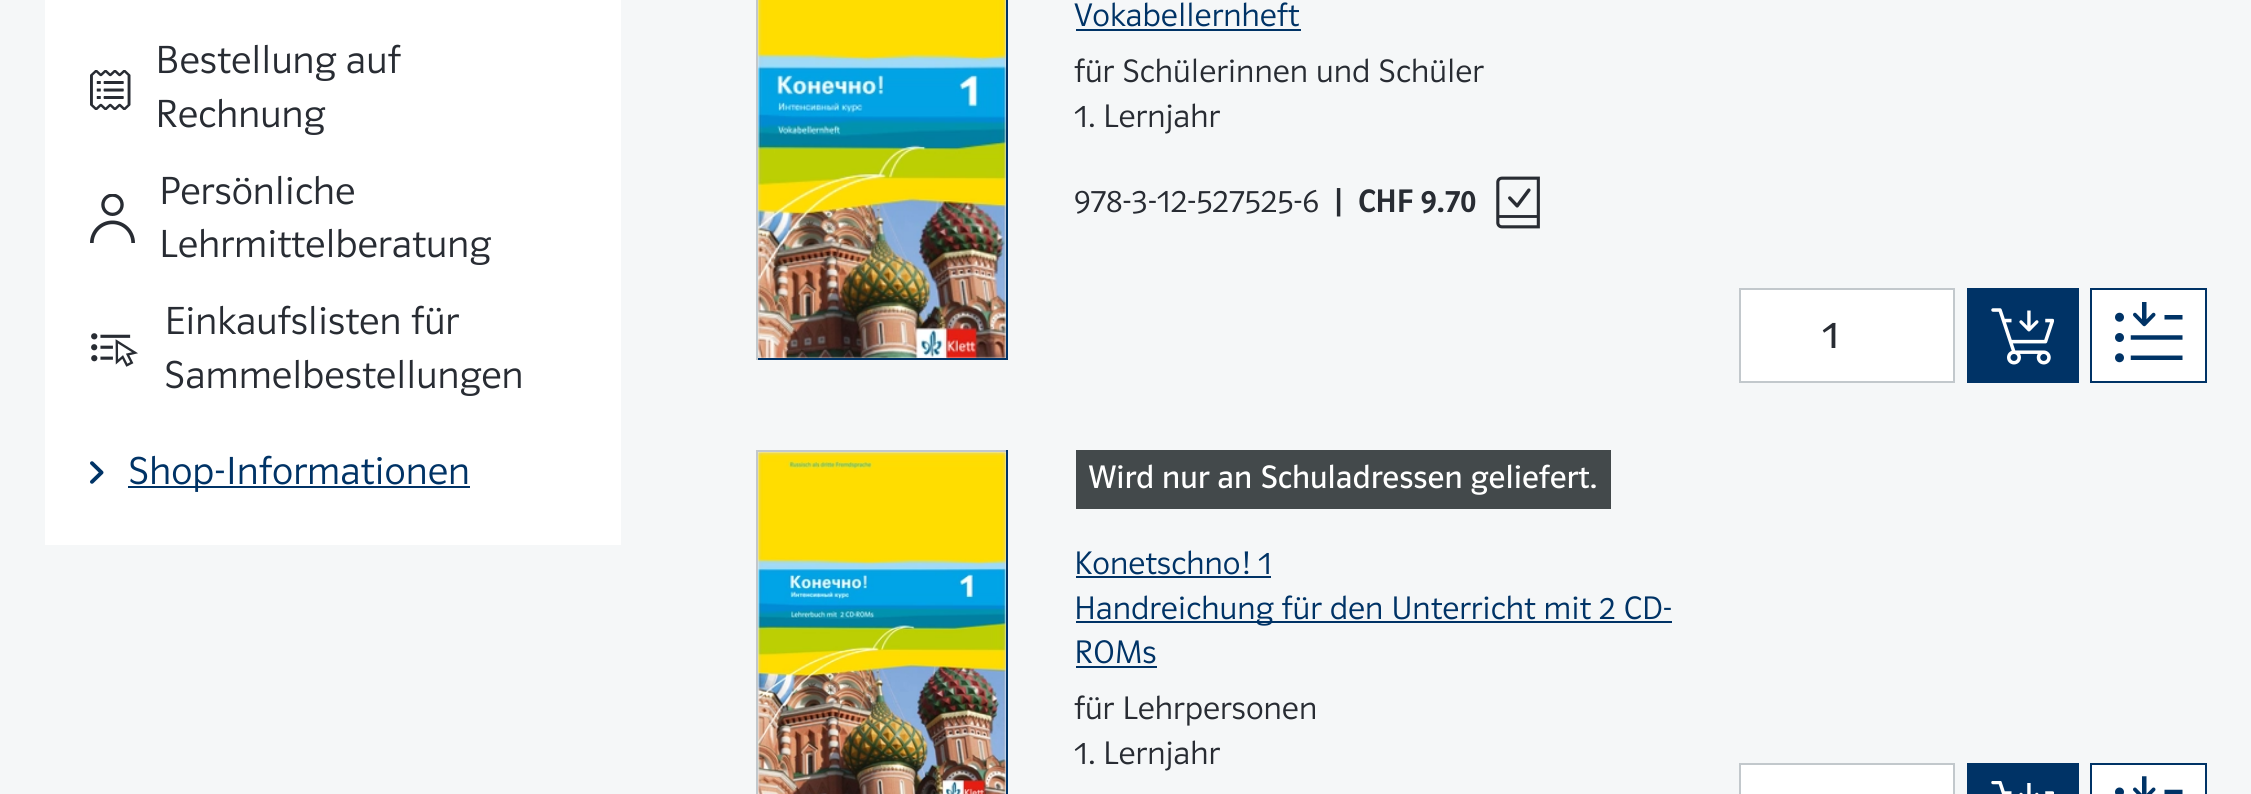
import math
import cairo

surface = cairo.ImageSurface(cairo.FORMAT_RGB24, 2251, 794)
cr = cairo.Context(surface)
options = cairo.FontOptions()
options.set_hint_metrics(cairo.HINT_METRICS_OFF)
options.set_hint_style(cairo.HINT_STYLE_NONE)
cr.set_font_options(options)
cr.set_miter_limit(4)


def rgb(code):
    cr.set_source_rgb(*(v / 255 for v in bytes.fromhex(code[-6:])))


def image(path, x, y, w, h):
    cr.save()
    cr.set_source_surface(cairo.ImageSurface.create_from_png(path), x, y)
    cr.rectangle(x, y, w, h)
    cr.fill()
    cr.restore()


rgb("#f5f7f8")
cr.paint()
rgb("#ffffff")
cr.rectangle(45, 0, 576, 545)
cr.fill()
image("img/1.png", 90, 70, 41, 40)
image("img/2.png", 90, 194, 45, 49)
image("img/3.png", 91, 333, 47, 34)
image("img/4.png", 90, 461, 14, 23)
for x, y, w, h, color in [
    (128, 486, 342, 2, "#003366"),
    (1006, 0, 2, 360, "#003366"),
    (756, 358, 252, 2, "#003366"),
    (756, 0, 2, 360, "#c2c8cc"),
]:
    rgb(color)
    cr.rectangle(x, y, w, h)
    cr.fill()
image("img/5.png", 758, 0, 248, 358)
rgb("#003366")
cr.rectangle(1076, 29, 225, 2)
cr.fill()
image("img/6.png", 1496, 176, 44, 53)
rgb("#ffffff")
cr.rectangle(1740, 289, 214, 93)
cr.fill_preserve()
rgb("#c2c8cc")
cr.stroke()
rgb("#003366")
cr.rectangle(1967, 288, 112, 95)
cr.fill()
image("img/7.png", 1991, 308, 63, 57)
rgb("#ffffff")
cr.rectangle(2091, 289, 115, 93)
cr.fill_preserve()
rgb("#003366")
cr.stroke()
image("img/8.png", 2115, 302, 68, 61)
for x, y, w, h, color in [
    (756, 450, 252, 2, "#c2c8cc"),
    (1006, 450, 2, 344, "#003366"),
    (756, 450, 2, 344, "#c2c8cc"),
]:
    rgb(color)
    cr.rectangle(x, y, w, h)
    cr.fill()
image("img/9.png", 758, 452, 248, 342)
for x, y, w, h, color in [
    (1076, 450, 535, 59, "#43494b"),
    (1076, 576, 195, 2, "#003366"),
    (1076, 621, 596, 2, "#003366"),
    (1076, 666, 81, 2, "#003366"),
]:
    rgb(color)
    cr.rectangle(x, y, w, h)
    cr.fill()
rgb("#ffffff")
cr.rectangle(1740, 764, 214, 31)
cr.fill_preserve()
rgb("#c2c8cc")
cr.stroke()
rgb("#003366")
cr.rectangle(1967, 763, 112, 31)
cr.fill()
image("img/10.png", 1991, 781, 63, 13)
rgb("#ffffff")
cr.rectangle(2091, 764, 115, 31)
cr.fill_preserve()
rgb("#003366")
cr.stroke()
image("img/11.png", 2115, 776, 68, 18)
cr.select_font_face("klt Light")
cr.set_font_size(40.5)
rgb("#282c33")
for x, y, s in [
    (155, 73, "Bestellung auf"),
    (155, 127, "Rechnung"),
    (159, 204, "Persönliche"),
    (159, 257, "Lehrmittelberatung"),
    (164, 334, "Einkaufslisten für"),
    (164, 388, "Sammelbestellungen"),
]:
    cr.move_to(x, y)
    cr.show_text(s)
rgb("#003366")
cr.move_to(128, 484)
cr.show_text("Shop-Informationen")
cr.set_font_size(33.75)
cr.move_to(1074, 26)
cr.show_text("Vokabellernheft")
rgb("#282c33")
for x, y, s in [
    (1074, 82, "für Schülerinnen und Schüler"),
    (1074, 127, "1. Lernjahr"),
    (1074, 212, "978-3-12-527525-6"),
]:
    cr.move_to(x, y)
    cr.show_text(s)
cr.select_font_face("klt Medium")
cr.move_to(1333, 212)
cr.show_text("|")
cr.move_to(1358, 212)
cr.show_text("CHF 9.70")
cr.select_font_face("klt")
cr.set_font_size(40.5)
cr.move_to(1822, 348)
cr.show_text("1")
cr.set_font_size(33.75)
rgb("#ffffff")
cr.move_to(1088, 488)
cr.show_text("Wird nur an Schuladressen geliefert.")
cr.select_font_face("klt Light")
rgb("#003366")
for x, y, s in [
    (1074, 574, "Konetschno! 1"),
    (1074, 619, "Handreichung für den Unterricht mit 2 CD-"),
    (1074, 663, "ROMs"),
]:
    cr.move_to(x, y)
    cr.show_text(s)
rgb("#282c33")
cr.move_to(1074, 719)
cr.show_text("für Lehrpersonen")
cr.move_to(1074, 764)
cr.show_text("1. Lernjahr")
surface.write_to_png("page.png")
